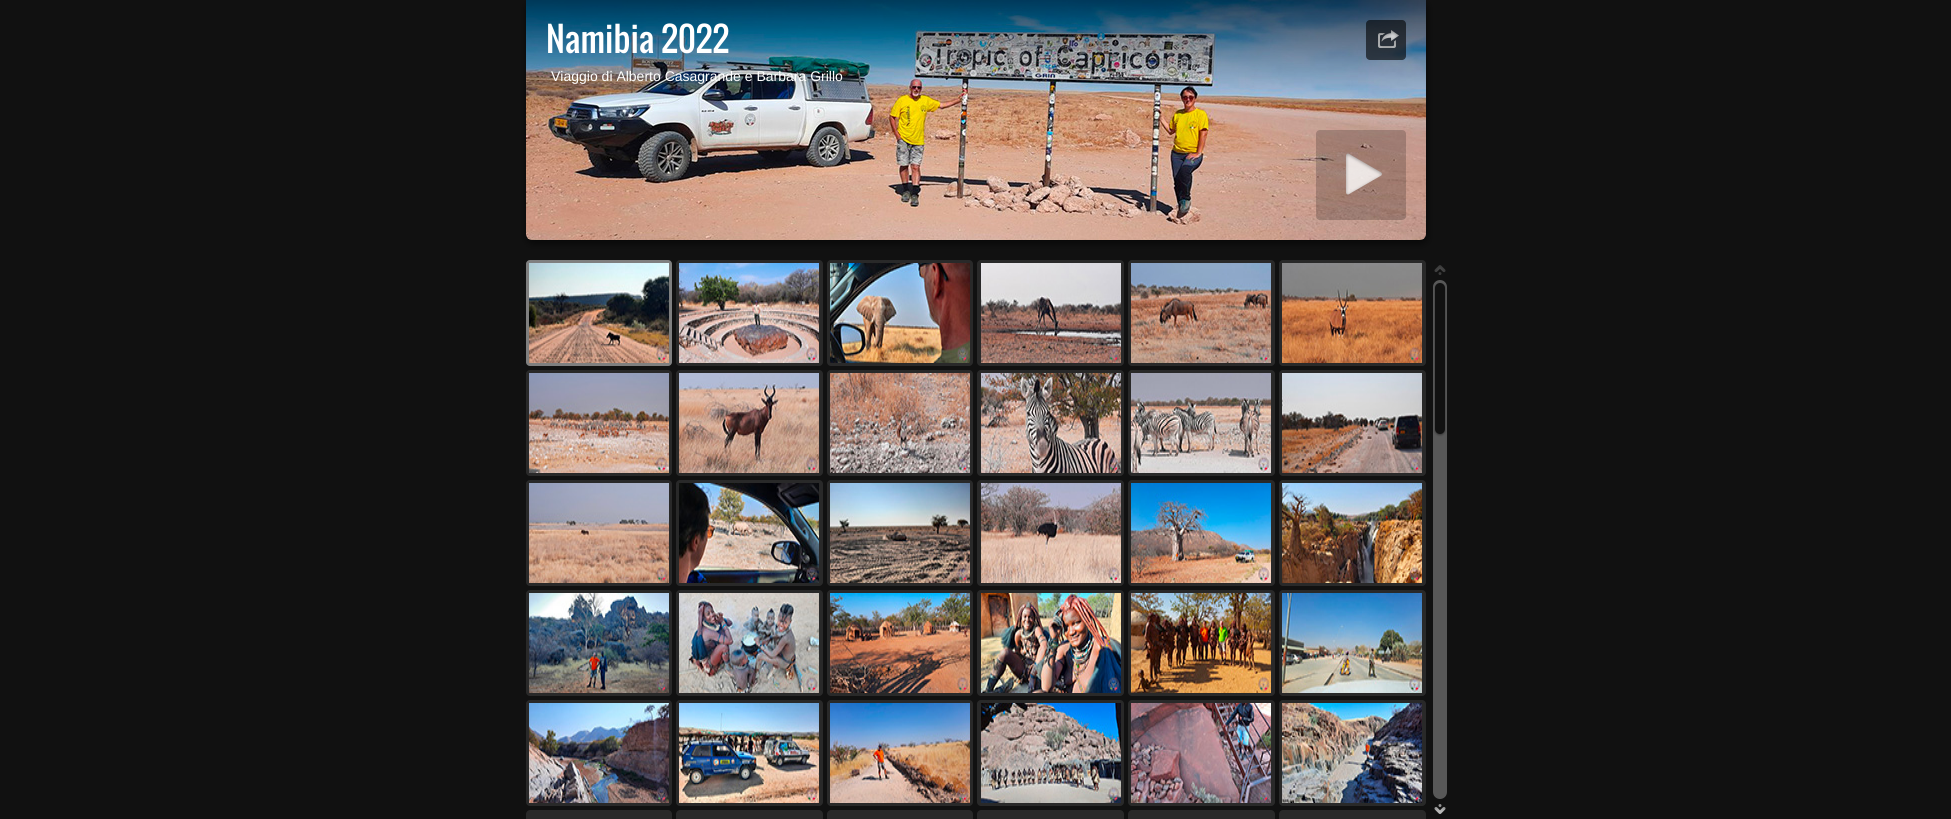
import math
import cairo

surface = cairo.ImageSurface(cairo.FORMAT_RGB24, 1951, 819)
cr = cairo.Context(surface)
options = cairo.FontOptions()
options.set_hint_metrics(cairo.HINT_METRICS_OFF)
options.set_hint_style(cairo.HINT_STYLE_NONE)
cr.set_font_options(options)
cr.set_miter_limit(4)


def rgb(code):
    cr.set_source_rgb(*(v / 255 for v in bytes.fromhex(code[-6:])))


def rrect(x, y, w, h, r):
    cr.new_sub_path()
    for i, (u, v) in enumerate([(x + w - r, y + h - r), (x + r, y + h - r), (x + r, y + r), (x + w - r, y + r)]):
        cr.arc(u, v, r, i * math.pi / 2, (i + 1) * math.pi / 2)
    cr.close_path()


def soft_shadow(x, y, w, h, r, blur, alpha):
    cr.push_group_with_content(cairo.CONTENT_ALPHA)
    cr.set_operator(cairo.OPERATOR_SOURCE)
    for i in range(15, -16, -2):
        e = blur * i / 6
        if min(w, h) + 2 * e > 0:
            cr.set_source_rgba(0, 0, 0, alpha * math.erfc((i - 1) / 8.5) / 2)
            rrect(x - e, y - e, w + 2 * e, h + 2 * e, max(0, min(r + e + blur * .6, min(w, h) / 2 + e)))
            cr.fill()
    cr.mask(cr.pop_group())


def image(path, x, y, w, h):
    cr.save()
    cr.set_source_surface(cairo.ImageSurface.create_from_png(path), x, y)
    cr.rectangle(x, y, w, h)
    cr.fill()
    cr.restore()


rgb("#111111")
cr.paint()
rgb("#000000")
soft_shadow(527, 3, 900, 240, 6, 4, 0.6)
image("img/1.png", 526, 0, 900, 240)
cr.set_source_rgba(0, 0, 0, 0.6)
rrect(1366, 20, 40, 40, 4)
cr.fill()
image("img/2.png", 1378, 30, 21, 18)
cr.set_source_rgba(0, 0, 0, 0.2)
rrect(1316, 130, 90, 90, 4)
cr.fill()
image("img/3.png", 1346, 153, 36, 42)
rgb("#292929")
rrect(526, 260, 146, 106, 4)
cr.fill()
cr.set_source_rgba(1, 1, 1, 0.4)
rrect(526, 260, 146, 106, 4)
cr.fill()
image("img/4.png", 529, 263, 140, 100)
rgb("#292929")
rrect(676, 260, 147, 106, 4)
cr.fill()
image("img/5.png", 679, 263, 140, 100)
rrect(827, 260, 146, 106, 4)
cr.fill()
image("img/6.png", 830, 263, 140, 100)
rrect(977, 260, 147, 106, 4)
cr.fill()
image("img/7.png", 981, 263, 140, 100)
rrect(1128, 260, 147, 106, 4)
cr.fill()
image("img/8.png", 1131, 263, 140, 100)
rrect(1279, 260, 147, 106, 4)
cr.fill()
image("img/9.png", 1282, 263, 140, 100)
rrect(526, 370, 146, 106, 4)
cr.fill()
image("img/10.png", 529, 373, 140, 100)
rrect(676, 370, 147, 106, 4)
cr.fill()
image("img/11.png", 679, 373, 140, 100)
rrect(827, 370, 146, 106, 4)
cr.fill()
image("img/12.png", 830, 373, 140, 100)
rrect(977, 370, 147, 106, 4)
cr.fill()
image("img/13.png", 981, 373, 140, 100)
rrect(1128, 370, 147, 106, 4)
cr.fill()
image("img/14.png", 1131, 373, 140, 100)
rrect(1279, 370, 147, 106, 4)
cr.fill()
image("img/15.png", 1282, 373, 140, 100)
rrect(526, 480, 146, 106, 4)
cr.fill()
image("img/16.png", 529, 483, 140, 100)
rrect(676, 480, 147, 106, 4)
cr.fill()
image("img/17.png", 679, 483, 140, 100)
rrect(827, 480, 146, 106, 4)
cr.fill()
image("img/18.png", 830, 483, 140, 100)
rrect(977, 480, 147, 106, 4)
cr.fill()
image("img/19.png", 981, 483, 140, 100)
rrect(1128, 480, 147, 106, 4)
cr.fill()
image("img/20.png", 1131, 483, 140, 100)
rrect(1279, 480, 147, 106, 4)
cr.fill()
image("img/21.png", 1282, 483, 140, 100)
rrect(526, 590, 146, 106, 4)
cr.fill()
image("img/22.png", 529, 593, 140, 100)
rrect(676, 590, 147, 106, 4)
cr.fill()
image("img/23.png", 679, 593, 140, 100)
rrect(827, 590, 146, 106, 4)
cr.fill()
image("img/24.png", 830, 593, 140, 100)
rrect(977, 590, 147, 106, 4)
cr.fill()
image("img/25.png", 981, 593, 140, 100)
rrect(1128, 590, 147, 106, 4)
cr.fill()
image("img/26.png", 1131, 593, 140, 100)
rrect(1279, 590, 147, 106, 4)
cr.fill()
image("img/27.png", 1282, 593, 140, 100)
rrect(526, 700, 146, 106, 4)
cr.fill()
image("img/28.png", 529, 703, 140, 100)
rrect(676, 700, 147, 106, 4)
cr.fill()
image("img/29.png", 679, 703, 140, 100)
rrect(827, 700, 146, 106, 4)
cr.fill()
image("img/30.png", 830, 703, 140, 100)
rrect(977, 700, 147, 106, 4)
cr.fill()
image("img/31.png", 981, 703, 140, 100)
rrect(1128, 700, 147, 106, 4)
cr.fill()
image("img/32.png", 1131, 703, 140, 100)
rrect(1279, 700, 147, 106, 4)
cr.fill()
image("img/33.png", 1282, 703, 140, 100)
cr.new_path()
cr.move_to(530, 810)
cr.line_to(668, 810)
cr.curve_to(670, 810, 672, 812, 672, 814)
cr.line_to(672, 819)
cr.line_to(526, 819)
cr.line_to(526, 814)
cr.curve_to(526, 812, 528, 810, 530, 810)
cr.close_path()
cr.fill()
cr.new_path()
cr.move_to(680, 810)
cr.line_to(819, 810)
cr.curve_to(821, 810, 823, 812, 823, 814)
cr.line_to(823, 819)
cr.line_to(676, 819)
cr.line_to(676, 814)
cr.curve_to(676, 812, 678, 810, 680, 810)
cr.close_path()
cr.fill()
cr.new_path()
cr.move_to(831, 810)
cr.line_to(969, 810)
cr.curve_to(971, 810, 973, 812, 973, 814)
cr.line_to(973, 819)
cr.line_to(827, 819)
cr.line_to(827, 814)
cr.curve_to(827, 812, 829, 810, 831, 810)
cr.close_path()
cr.fill()
cr.new_path()
cr.move_to(981, 810)
cr.line_to(1120, 810)
cr.curve_to(1122, 810, 1124, 812, 1124, 814)
cr.line_to(1124, 819)
cr.line_to(977, 819)
cr.line_to(977, 814)
cr.curve_to(977, 812, 979, 810, 981, 810)
cr.close_path()
cr.fill()
cr.new_path()
cr.move_to(1132, 810)
cr.line_to(1271, 810)
cr.curve_to(1273, 810, 1275, 812, 1275, 814)
cr.line_to(1275, 819)
cr.line_to(1128, 819)
cr.line_to(1128, 814)
cr.curve_to(1128, 812, 1130, 810, 1132, 810)
cr.close_path()
cr.fill()
cr.new_path()
cr.move_to(1283, 810)
cr.line_to(1422, 810)
cr.curve_to(1424, 810, 1426, 812, 1426, 814)
cr.line_to(1426, 819)
cr.line_to(1279, 819)
cr.line_to(1279, 814)
cr.curve_to(1279, 812, 1281, 810, 1283, 810)
cr.close_path()
cr.fill()
image("img/34.png", 1434, 265, 12, 10)
rgb("#585858")
rrect(1433, 280, 14, 519, 7)
cr.fill()
rgb("#000000")
soft_shadow(1435, 284, 10, 151, 5, 1, 0.4)
rgb("#111111")
rrect(1435, 283, 10, 151, 5)
cr.fill()
image("img/35.png", 1434, 804, 12, 10)
cr.select_font_face("Oswald")
cr.set_font_size(33.5)
rgb("#ffffff")
cr.move_to(546, 53)
cr.show_text("Namibia 2022")
cr.select_font_face("Liberation Sans")
cr.set_font_size(14)
cr.move_to(551, 81)
cr.show_text("Viaggio di Alberto Casagrande e Barbara Grillo")
surface.write_to_png("page.png")
